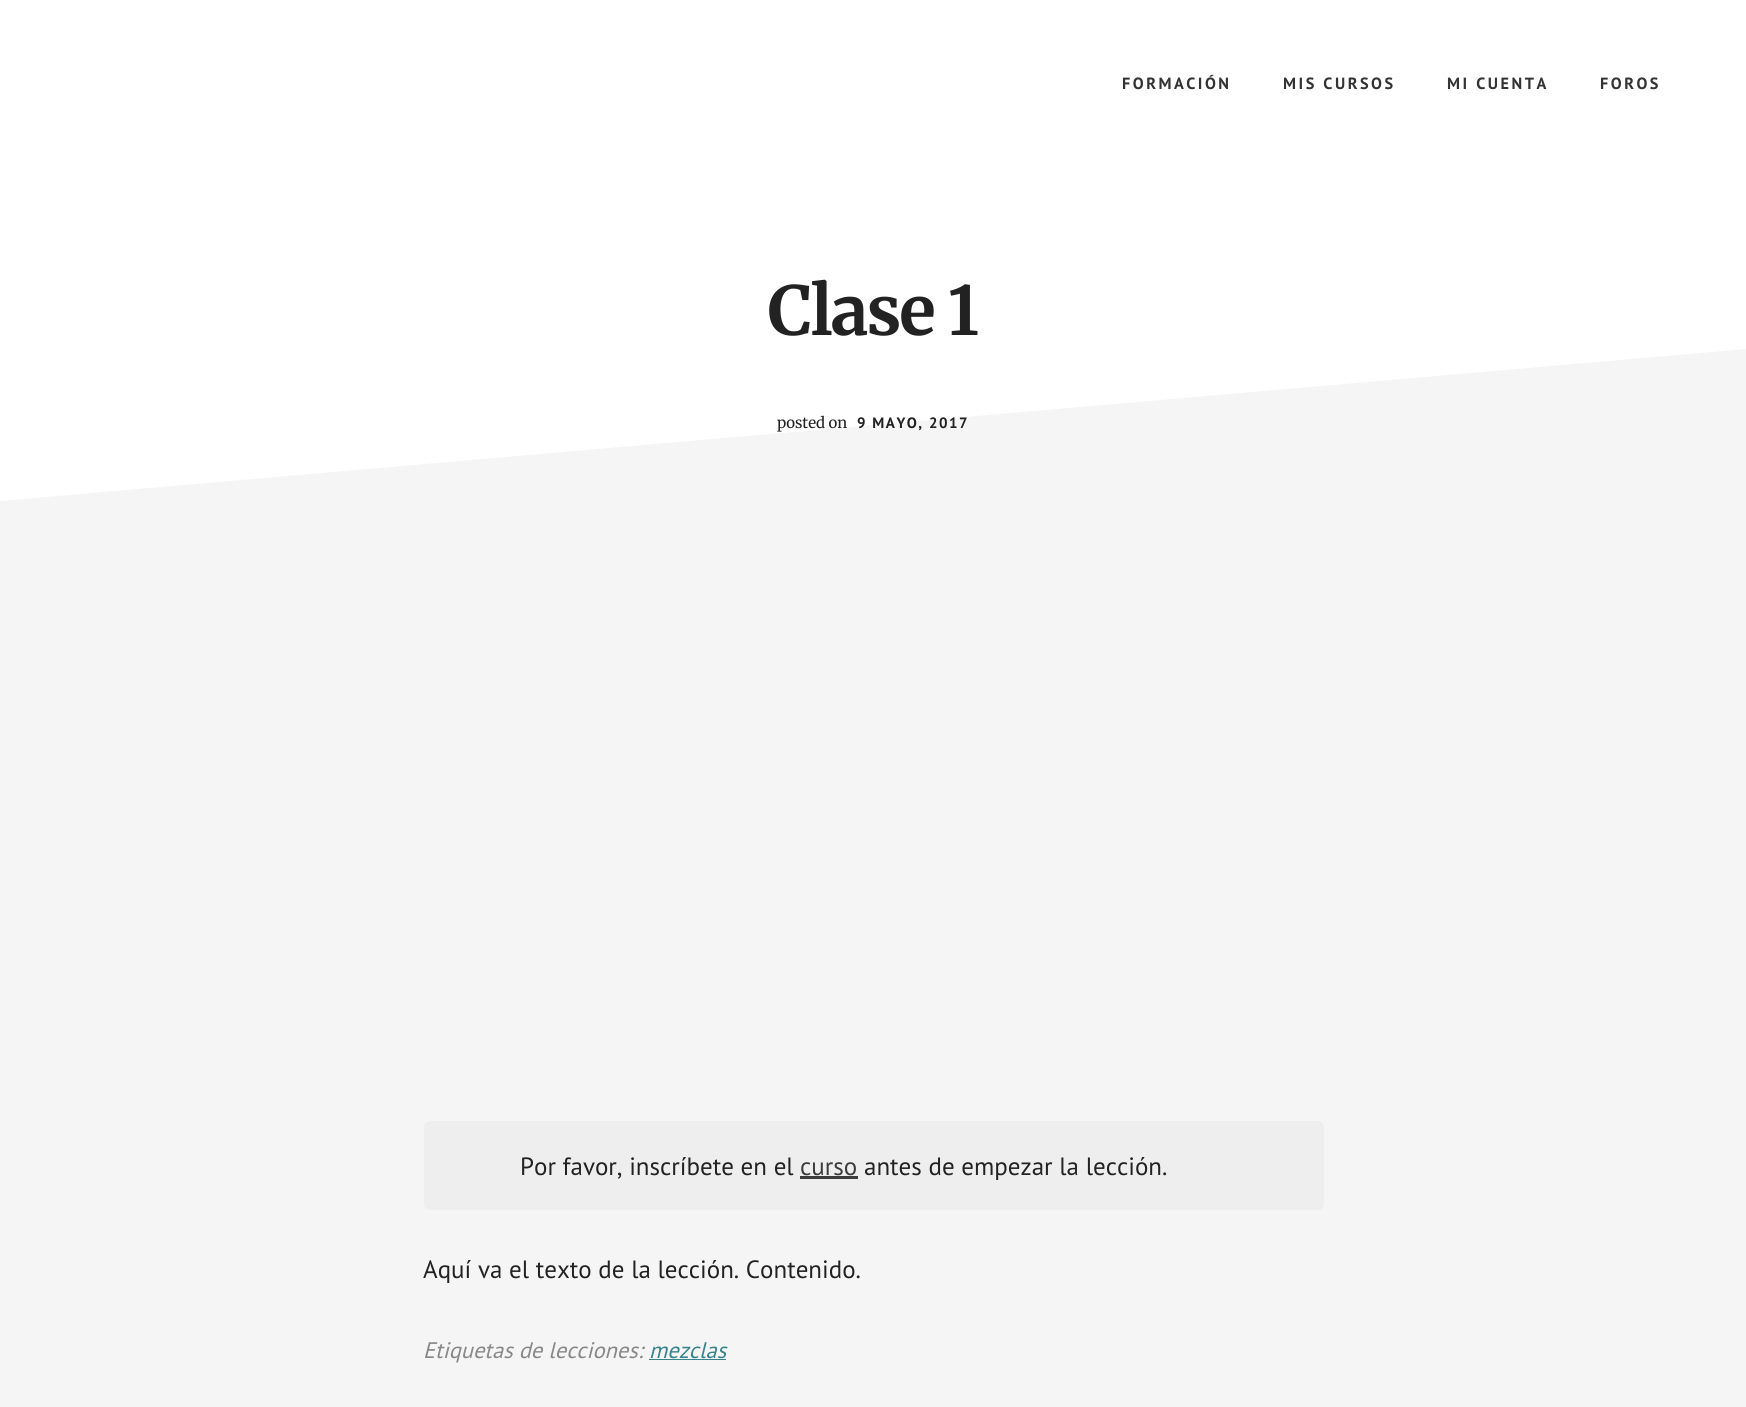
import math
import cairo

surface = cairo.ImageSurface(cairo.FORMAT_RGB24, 1746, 1407)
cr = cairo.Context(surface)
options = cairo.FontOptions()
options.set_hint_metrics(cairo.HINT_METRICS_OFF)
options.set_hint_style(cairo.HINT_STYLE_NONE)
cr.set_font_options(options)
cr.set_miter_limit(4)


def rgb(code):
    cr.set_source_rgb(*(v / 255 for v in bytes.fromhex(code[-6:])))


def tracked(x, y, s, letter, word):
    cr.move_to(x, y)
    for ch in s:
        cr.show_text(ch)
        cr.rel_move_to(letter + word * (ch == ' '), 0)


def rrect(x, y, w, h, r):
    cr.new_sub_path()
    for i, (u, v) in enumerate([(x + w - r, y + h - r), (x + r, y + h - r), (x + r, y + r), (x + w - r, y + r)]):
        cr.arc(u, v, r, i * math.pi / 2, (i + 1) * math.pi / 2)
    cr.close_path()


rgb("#ffffff")
cr.paint()
rgb("#f5f5f5")
cr.new_path()
cr.move_to(0, 501)
cr.line_to(1746, 349)
cr.line_to(1746, 1029)
cr.line_to(0, 1182)
cr.close_path()
cr.fill()
cr.new_path()
cr.move_to(0, 907)
cr.line_to(1746, 754)
cr.line_to(1746, 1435)
cr.line_to(0, 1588)
cr.close_path()
cr.fill()
rgb("#eeeeee")
rrect(424, 1121, 900, 89, 6)
cr.fill()
rgb("#3c3c3c")
cr.rectangle(800, 1176, 58, 3)
cr.fill()
rgb("#37848c")
cr.rectangle(649, 1359, 77, 1)
cr.fill()
cr.select_font_face("PT Sans", cairo.FONT_SLANT_NORMAL, cairo.FONT_WEIGHT_BOLD)
cr.set_font_size(16.25)
rgb("#333333")
for x, y, s in [
    (1122, 89, "FORMACIÓN"),
    (1283, 89, "MIS CURSOS"),
    (1447, 89, "MI CUENTA"),
    (1600, 89, "FOROS"),
]:
    tracked(x, y, s, 2.5, 0)
cr.select_font_face("Merriweather", cairo.FONT_SLANT_NORMAL, cairo.FONT_WEIGHT_BOLD)
cr.set_font_size(67.5)
rgb("#222222")
tracked(768, 335, "Clase 1", -2, 0)
cr.select_font_face("Merriweather")
cr.set_font_size(15)
cr.move_to(777, 428)
cr.show_text("posted on")
cr.select_font_face("PT Sans", cairo.FONT_SLANT_NORMAL, cairo.FONT_WEIGHT_BOLD)
tracked(857, 428, "9 MAYO, 2017", 1.5, 0)
cr.select_font_face("PT Sans")
cr.set_font_size(25)
cr.move_to(520, 1175)
cr.show_text("Por favor, inscríbete en el")
rgb("#3c3c3c")
cr.move_to(800, 1175)
cr.show_text("curso")
rgb("#222222")
cr.move_to(864, 1175)
cr.show_text("antes de empezar la lección.")
cr.move_to(423, 1278)
cr.show_text("Aquí va el texto de la lección. Contenido.")
cr.select_font_face("PT Sans", cairo.FONT_SLANT_ITALIC)
cr.set_font_size(22.5)
rgb("#888888")
cr.move_to(423, 1358)
cr.show_text("Etiquetas de lecciones:")
rgb("#37848c")
cr.move_to(649, 1358)
cr.show_text("mezclas")
surface.write_to_png("page.png")
